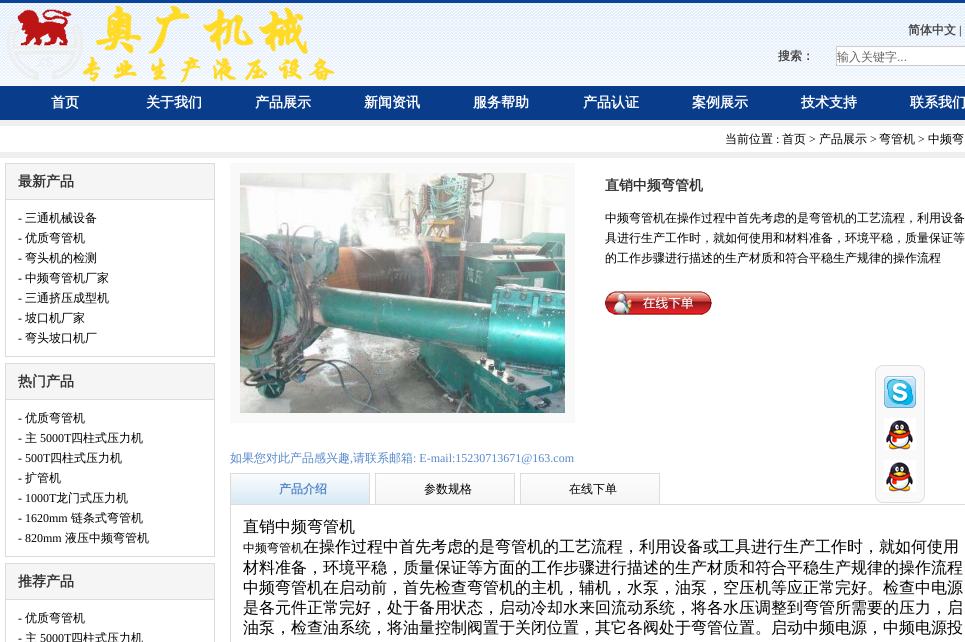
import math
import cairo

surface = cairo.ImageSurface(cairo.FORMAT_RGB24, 965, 642)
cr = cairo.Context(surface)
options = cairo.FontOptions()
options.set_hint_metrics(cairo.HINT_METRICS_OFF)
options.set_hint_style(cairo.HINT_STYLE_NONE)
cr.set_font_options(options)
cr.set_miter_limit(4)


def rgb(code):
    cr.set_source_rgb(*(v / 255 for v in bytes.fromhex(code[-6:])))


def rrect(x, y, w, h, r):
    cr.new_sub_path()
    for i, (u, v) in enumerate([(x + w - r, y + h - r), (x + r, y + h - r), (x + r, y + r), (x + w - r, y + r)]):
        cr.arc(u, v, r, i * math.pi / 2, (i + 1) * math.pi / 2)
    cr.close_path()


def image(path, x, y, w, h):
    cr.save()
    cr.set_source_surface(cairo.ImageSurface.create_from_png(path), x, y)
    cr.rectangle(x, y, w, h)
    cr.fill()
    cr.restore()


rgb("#ffffff")
cr.paint()
image("img/1.png", 0, 0, 965, 158)
image("img/2.png", 6, 6, 329, 77)
image("img/3.png", 836, 46, 129, 20)
for x, y, w, h, color in [
    (837, 49, 128, 16, "#ffffff"),
    (0, 126, 965, 26, "#ffffff"),
    (5, 163, 210, 194, "#dbdbdb"),
    (6, 164, 208, 35, "#f5f5f5"),
    (6, 200, 208, 156, "#ffffff"),
    (5, 363, 210, 194, "#dbdbdb"),
    (6, 364, 208, 35, "#f5f5f5"),
    (6, 400, 208, 156, "#ffffff"),
    (5, 563, 210, 79, "#dbdbdb"),
    (6, 564, 208, 35, "#f5f5f5"),
    (6, 600, 208, 42, "#ffffff"),
    (230, 163, 345, 260, "#f9f9f9"),
]:
    rgb(color)
    cr.rectangle(x, y, w, h)
    cr.fill()
image("img/4.png", 240, 173, 325, 240)
image("img/5.png", 605, 291, 107, 24)
image("img/6.png", 230, 473, 140, 31)
image("img/7.png", 375, 473, 140, 31)
image("img/7.png", 520, 473, 140, 31)
rgb("#dbdbdb")
cr.rectangle(230, 504, 735, 138)
cr.fill()
rgb("#ffffff")
cr.rectangle(231, 505, 734, 137)
cr.fill()
rgb("#f9f9f9")
rrect(875.5, 365.5, 49, 137, 7.5)
cr.fill_preserve()
rgb("#dfdfdf")
cr.set_line_width(1)
cr.stroke()
image("img/8.png", 884, 376, 32, 32)
image("img/9.png", 884, 418, 32, 32)
image("img/9.png", 884, 460, 32, 32)
cr.select_font_face("WenQuanYi Zen Hei", cairo.FONT_SLANT_NORMAL, cairo.FONT_WEIGHT_BOLD)
cr.set_font_size(12)
rgb("#444444")
cr.move_to(908, 34)
cr.show_text("简体中文")
cr.select_font_face("Liberation Serif", cairo.FONT_SLANT_NORMAL, cairo.FONT_WEIGHT_BOLD)
cr.move_to(959, 34)
cr.show_text("|")
cr.select_font_face("WenQuanYi Zen Hei", cairo.FONT_SLANT_NORMAL, cairo.FONT_WEIGHT_BOLD)
cr.move_to(778, 60)
cr.show_text("搜索：")
cr.select_font_face("WenQuanYi Zen Hei Medium")
rgb("#666666")
cr.move_to(837, 61)
cr.show_text("输入关键字")
cr.select_font_face("Liberation Sans")
cr.move_to(897, 61)
cr.show_text("...")
cr.select_font_face("WenQuanYi Zen Hei", cairo.FONT_SLANT_NORMAL, cairo.FONT_WEIGHT_BOLD)
cr.set_font_size(14)
rgb("#ffffff")
for x, y, s in [
    (51, 107, "首页"),
    (146, 107, "关于我们"),
    (255, 107, "产品展示"),
    (364, 107, "新闻资讯"),
    (473, 107, "服务帮助"),
    (583, 107, "产品认证"),
    (692, 107, "案例展示"),
    (801, 107, "技术支持"),
    (910, 107, "联系我们"),
]:
    cr.move_to(x, y)
    cr.show_text(s)
cr.select_font_face("WenQuanYi Zen Hei Medium")
cr.set_font_size(12)
rgb("#000000")
cr.move_to(725, 143)
cr.show_text("当前位置")
cr.select_font_face("Liberation Serif")
cr.move_to(776, 143)
cr.show_text(":")
cr.select_font_face("WenQuanYi Zen Hei Medium")
cr.move_to(782, 143)
cr.show_text("首页")
cr.select_font_face("Liberation Serif")
cr.move_to(809, 143)
cr.show_text(">")
cr.select_font_face("WenQuanYi Zen Hei Medium")
cr.move_to(819, 143)
cr.show_text("产品展示")
cr.select_font_face("Liberation Serif")
cr.move_to(870, 143)
cr.show_text(">")
cr.select_font_face("WenQuanYi Zen Hei Medium")
cr.move_to(879, 143)
cr.show_text("弯管机")
cr.select_font_face("Liberation Serif")
cr.move_to(918, 143)
cr.show_text(">")
cr.select_font_face("WenQuanYi Zen Hei Medium")
cr.move_to(928, 143)
cr.show_text("中频弯")
cr.select_font_face("WenQuanYi Zen Hei", cairo.FONT_SLANT_NORMAL, cairo.FONT_WEIGHT_BOLD)
cr.set_font_size(14)
rgb("#333333")
cr.move_to(18, 186)
cr.show_text("最新产品")
cr.select_font_face("Liberation Serif")
cr.set_font_size(12)
rgb("#000000")
cr.move_to(18, 222)
cr.show_text("-")
cr.select_font_face("WenQuanYi Zen Hei Medium")
cr.move_to(25, 222)
cr.show_text("三通机械设备")
cr.select_font_face("Liberation Serif")
cr.move_to(18, 242)
cr.show_text("-")
cr.select_font_face("WenQuanYi Zen Hei Medium")
cr.move_to(25, 242)
cr.show_text("优质弯管机")
cr.select_font_face("Liberation Serif")
cr.move_to(18, 262)
cr.show_text("-")
cr.select_font_face("WenQuanYi Zen Hei Medium")
cr.move_to(25, 262)
cr.show_text("弯头机的检测")
cr.select_font_face("Liberation Serif")
cr.move_to(18, 282)
cr.show_text("-")
cr.select_font_face("WenQuanYi Zen Hei Medium")
cr.move_to(25, 282)
cr.show_text("中频弯管机厂家")
cr.select_font_face("Liberation Serif")
cr.move_to(18, 302)
cr.show_text("-")
cr.select_font_face("WenQuanYi Zen Hei Medium")
cr.move_to(25, 302)
cr.show_text("三通挤压成型机")
cr.select_font_face("Liberation Serif")
cr.move_to(18, 322)
cr.show_text("-")
cr.select_font_face("WenQuanYi Zen Hei Medium")
cr.move_to(25, 322)
cr.show_text("坡口机厂家")
cr.select_font_face("Liberation Serif")
cr.move_to(18, 342)
cr.show_text("-")
cr.select_font_face("WenQuanYi Zen Hei Medium")
cr.move_to(25, 342)
cr.show_text("弯头坡口机厂")
cr.select_font_face("WenQuanYi Zen Hei", cairo.FONT_SLANT_NORMAL, cairo.FONT_WEIGHT_BOLD)
cr.set_font_size(14)
rgb("#333333")
cr.move_to(18, 386)
cr.show_text("热门产品")
cr.select_font_face("Liberation Serif")
cr.set_font_size(12)
rgb("#000000")
cr.move_to(18, 422)
cr.show_text("-")
cr.select_font_face("WenQuanYi Zen Hei Medium")
cr.move_to(25, 422)
cr.show_text("优质弯管机")
cr.select_font_face("Liberation Serif")
cr.move_to(18, 442)
cr.show_text("-")
cr.select_font_face("WenQuanYi Zen Hei Medium")
cr.move_to(25, 442)
cr.show_text("主")
cr.select_font_face("Liberation Serif")
cr.move_to(40, 442)
cr.show_text("5000T")
cr.select_font_face("WenQuanYi Zen Hei Medium")
cr.move_to(71, 442)
cr.show_text("四柱式压力机")
cr.select_font_face("Liberation Serif")
cr.move_to(18, 462)
cr.show_text("- 500T")
cr.select_font_face("WenQuanYi Zen Hei Medium")
cr.move_to(50, 462)
cr.show_text("四柱式压力机")
cr.select_font_face("Liberation Serif")
cr.move_to(18, 482)
cr.show_text("-")
cr.select_font_face("WenQuanYi Zen Hei Medium")
cr.move_to(25, 482)
cr.show_text("扩管机")
cr.select_font_face("Liberation Serif")
cr.move_to(18, 502)
cr.show_text("- 1000T")
cr.select_font_face("WenQuanYi Zen Hei Medium")
cr.move_to(56, 502)
cr.show_text("龙门式压力机")
cr.select_font_face("Liberation Serif")
cr.move_to(18, 522)
cr.show_text("- 1620mm")
cr.select_font_face("WenQuanYi Zen Hei Medium")
cr.move_to(71, 522)
cr.show_text("链条式弯管机")
cr.select_font_face("Liberation Serif")
cr.move_to(18, 542)
cr.show_text("- 820mm")
cr.select_font_face("WenQuanYi Zen Hei Medium")
cr.move_to(65, 542)
cr.show_text("液压中频弯管机")
cr.select_font_face("WenQuanYi Zen Hei", cairo.FONT_SLANT_NORMAL, cairo.FONT_WEIGHT_BOLD)
cr.set_font_size(14)
rgb("#333333")
cr.move_to(18, 586)
cr.show_text("推荐产品")
cr.select_font_face("Liberation Serif")
cr.set_font_size(12)
rgb("#000000")
cr.move_to(18, 622)
cr.show_text("-")
cr.select_font_face("WenQuanYi Zen Hei Medium")
cr.move_to(25, 622)
cr.show_text("优质弯管机")
cr.select_font_face("Liberation Serif")
cr.move_to(18, 642)
cr.show_text("-")
cr.select_font_face("WenQuanYi Zen Hei Medium")
cr.move_to(25, 642)
cr.show_text("主")
cr.select_font_face("Liberation Serif")
cr.move_to(40, 642)
cr.show_text("5000T")
cr.select_font_face("WenQuanYi Zen Hei Medium")
cr.move_to(71, 642)
cr.show_text("四柱式压力机")
cr.select_font_face("WenQuanYi Zen Hei", cairo.FONT_SLANT_NORMAL, cairo.FONT_WEIGHT_BOLD)
cr.set_font_size(14)
rgb("#333333")
cr.move_to(605, 190)
cr.show_text("直销中频弯管机")
cr.select_font_face("WenQuanYi Zen Hei Medium")
cr.set_font_size(12)
rgb("#000000")
for x, y, s in [
    (605, 222, "中频弯管机在操作过程中首先考虑的是弯管机的工艺流程，利用设备"),
    (605, 242, "具进行生产工作时，就如何使用和材料准备，环境平稳，质量保证等"),
    (605, 262, "的工作步骤进行描述的生产材质和符合平稳生产规律的操作流程"),
]:
    cr.move_to(x, y)
    cr.show_text(s)
rgb("#5588cb")
cr.move_to(230, 462)
cr.show_text("如果您对此产品感兴趣")
cr.select_font_face("Liberation Serif")
cr.move_to(350, 462)
cr.show_text(",")
cr.select_font_face("WenQuanYi Zen Hei Medium")
cr.move_to(353, 462)
cr.show_text("请联系邮箱")
cr.select_font_face("Liberation Serif")
cr.move_to(413, 462)
cr.show_text(": E-mail:15230713671@163.com")
cr.select_font_face("WenQuanYi Zen Hei", cairo.FONT_SLANT_NORMAL, cairo.FONT_WEIGHT_BOLD)
cr.move_to(279, 493)
cr.show_text("产品介绍")
cr.select_font_face("WenQuanYi Zen Hei Medium")
rgb("#000000")
cr.move_to(424, 493)
cr.show_text("参数规格")
cr.move_to(569, 493)
cr.show_text("在线下单")
cr.set_font_size(16)
cr.move_to(243, 532)
cr.show_text("直销中频弯管机")
cr.set_font_size(12)
cr.move_to(243, 552)
cr.show_text("中频弯管机")
cr.set_font_size(16)
for x, y, s in [
    (303, 552, "在操作过程中首先考虑的是弯管机的工艺流程，利用设备或工具进行生产工作时，就如何使用"),
    (243, 573, "材料准备，环境平稳，质量保证等方面的工作步骤进行描述的生产材质和符合平稳生产规律的操作流程"),
    (243, 593, "中频弯管机在启动前，首先检查弯管机的主机，辅机，水泵，油泵，空压机等应正常完好。检查中电源"),
    (243, 613, "是各元件正常完好，处于备用状态，启动冷却水来回流动系统，将各水压调整到弯管所需要的压力，启"),
    (243, 633, "油泵，检查油系统，将油量控制阀置于关闭位置，其它各阀处于弯管位置。启动中频电源，中频电源投"),
]:
    cr.move_to(x, y)
    cr.show_text(s)
surface.write_to_png("page.png")
